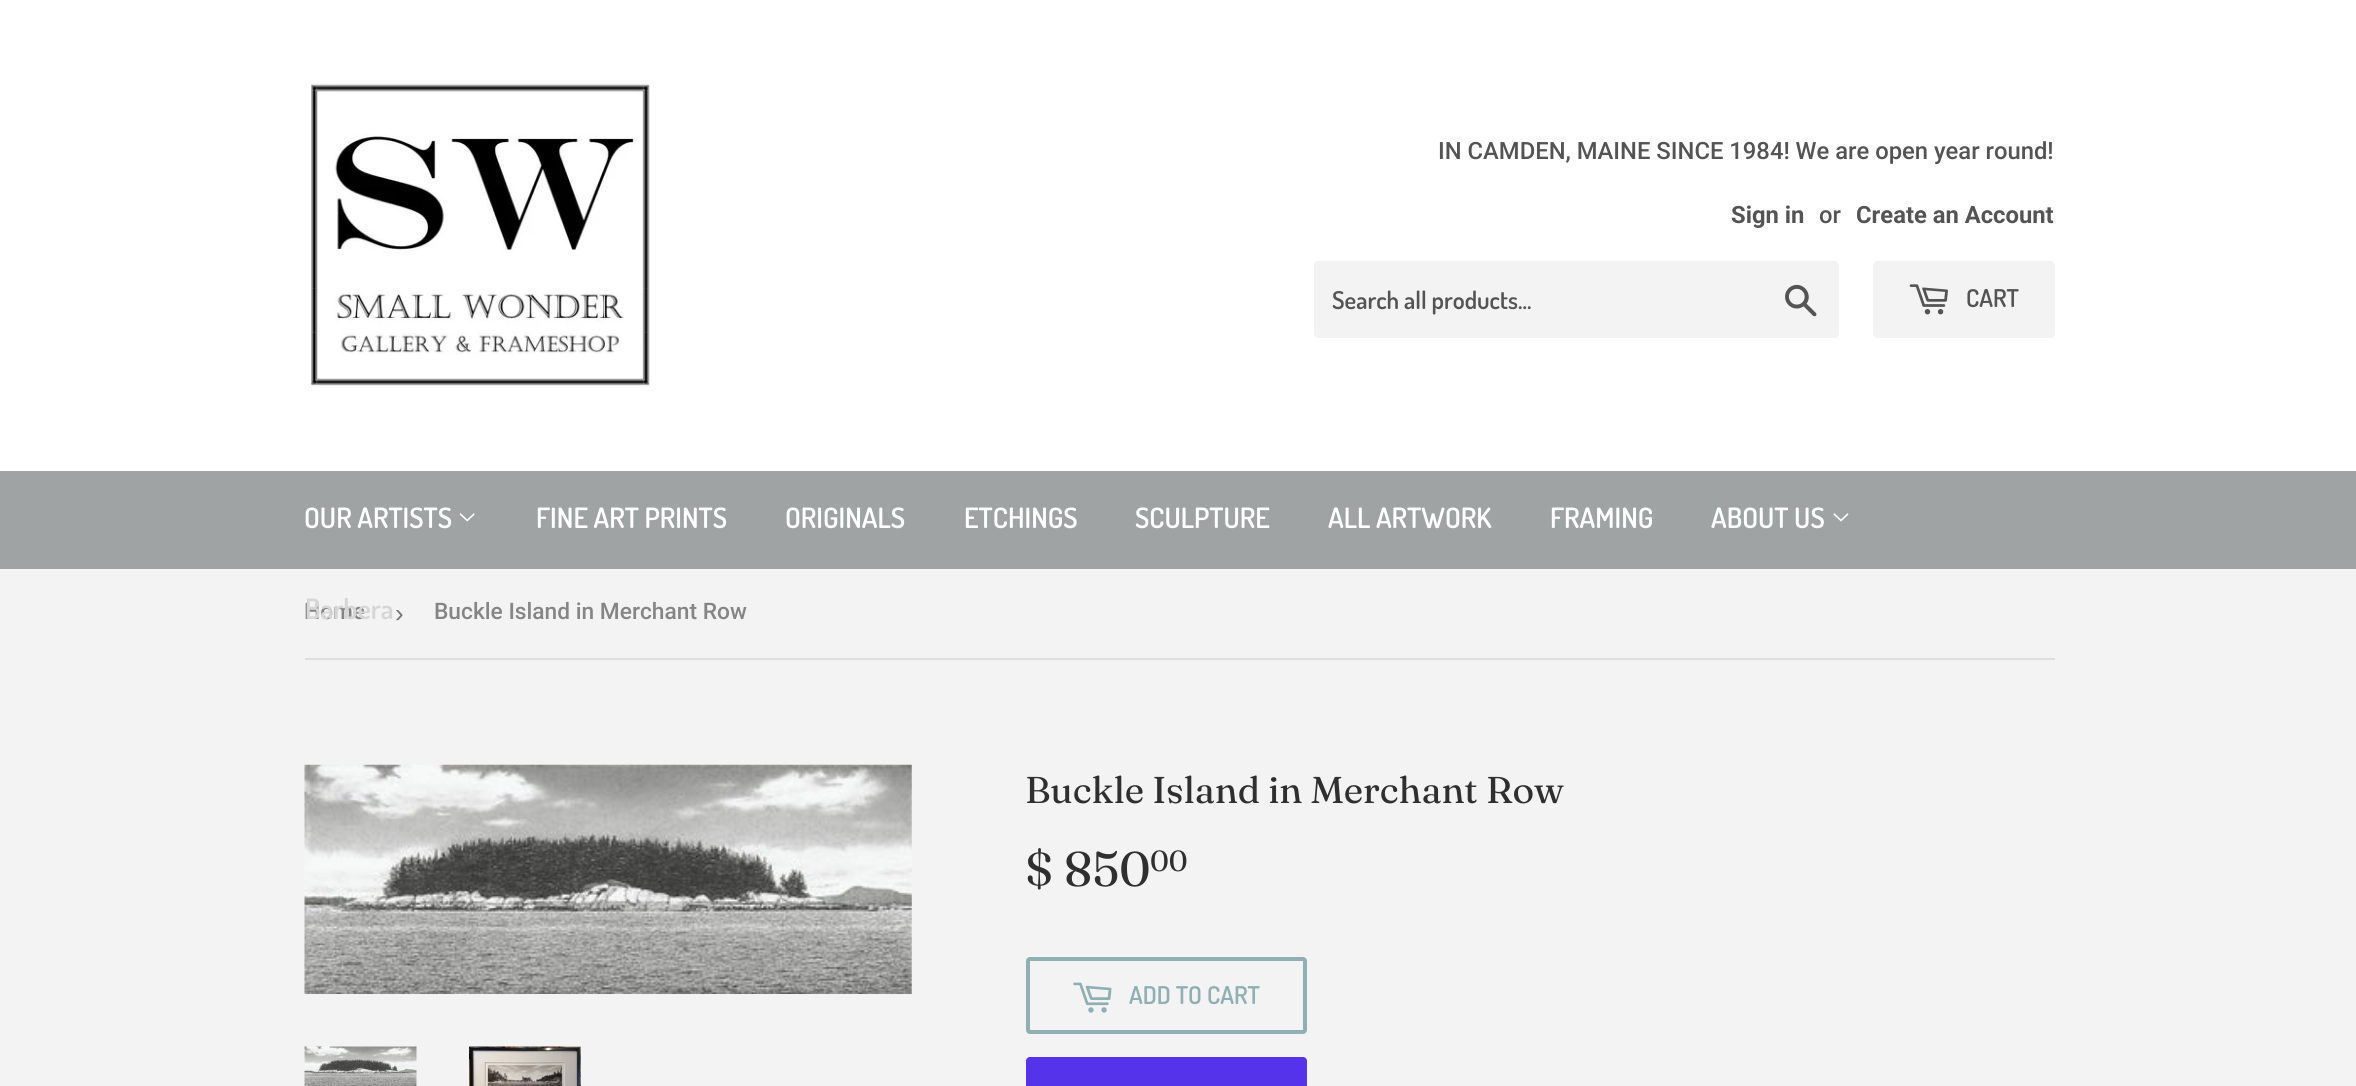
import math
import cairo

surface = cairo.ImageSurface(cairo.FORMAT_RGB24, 2356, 1086)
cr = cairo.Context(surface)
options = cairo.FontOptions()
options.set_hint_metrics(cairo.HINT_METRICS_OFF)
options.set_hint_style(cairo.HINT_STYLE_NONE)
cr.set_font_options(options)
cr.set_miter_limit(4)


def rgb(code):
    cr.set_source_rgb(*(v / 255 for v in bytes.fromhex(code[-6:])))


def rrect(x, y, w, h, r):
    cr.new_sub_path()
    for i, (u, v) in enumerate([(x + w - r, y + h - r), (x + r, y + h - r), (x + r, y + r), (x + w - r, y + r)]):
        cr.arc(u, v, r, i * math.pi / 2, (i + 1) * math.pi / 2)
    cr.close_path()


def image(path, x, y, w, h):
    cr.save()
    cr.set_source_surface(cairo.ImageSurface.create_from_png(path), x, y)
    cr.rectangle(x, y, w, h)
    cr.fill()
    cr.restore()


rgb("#f3f3f3")
cr.paint()
rgb("#ffffff")
cr.rectangle(0, 0, 2356, 471)
cr.fill()
image("img/1.png", 311, 83, 339, 303)
rgb("#f3f3f3")
rrect(1314, 261, 525, 77, 4)
cr.fill()
image("img/2.png", 1785, 284, 32, 33)
rrect(1873, 261, 182, 77, 4)
cr.fill()
image("img/3.png", 1909, 284, 39, 31)
rgb("#a0a3a4")
cr.rectangle(0, 471, 2356, 98)
cr.fill()
image("img/4.png", 459, 513, 16, 9)
image("img/5.png", 1833, 513, 16, 9)
rgb("#dedede")
cr.rectangle(305, 658, 1750, 2)
cr.fill()
image("img/6.png", 304, 764, 608, 230)
image("img/7.png", 304, 1046, 113, 40)
image("img/8.png", 469, 1046, 112, 40)
rrect(1028, 959, 277, 73, 2)
rgb("#90afb4")
cr.set_line_width(4)
cr.stroke()
image("img/9.png", 1073, 982, 39, 31)
rgb("#5433eb")
rrect(1026, 1057, 281, 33, 4)
cr.fill()
cr.select_font_face("Roboto Medium")
cr.set_font_size(23.8)
rgb("#545454")
cr.move_to(1438, 159)
cr.show_text("IN CAMDEN, MAINE SINCE 1984! We are open year round!")
cr.select_font_face("Roboto", cairo.FONT_SLANT_NORMAL, cairo.FONT_WEIGHT_BOLD)
cr.move_to(1731, 223)
cr.show_text("Sign in")
cr.select_font_face("Roboto Medium")
cr.move_to(1819, 223)
cr.show_text("or")
cr.select_font_face("Roboto", cairo.FONT_SLANT_NORMAL, cairo.FONT_WEIGHT_BOLD)
cr.move_to(1856, 223)
cr.show_text("Create an Account")
cr.select_font_face("Dosis SemiBold")
cr.set_font_size(24.5)
cr.move_to(1332, 309)
cr.show_text("Search all products...")
cr.move_to(1966, 307)
cr.show_text("CART")
cr.set_font_size(28)
rgb("#ffffff")
for x, y, s in [
    (304, 528, "OUR ARTISTS"),
    (536, 528, "FINE ART PRINTS"),
    (785, 528, "ORIGINALS"),
    (964, 528, "ETCHINGS"),
    (1135, 528, "SCULPTURE"),
    (1328, 528, "ALL ARTWORK"),
    (1550, 528, "FRAMING"),
    (1711, 528, "ABOUT US"),
]:
    cr.move_to(x, y)
    cr.show_text(s)
cr.select_font_face("Roboto Medium")
cr.set_font_size(22.75)
rgb("#858585")
cr.move_to(304, 619)
cr.show_text("Home")
cr.select_font_face("Dosis SemiBold")
cr.set_font_size(28)
rgb("#d6d6d6")
cr.move_to(305, 619)
cr.show_text("Barbera")
cr.select_font_face("Liberation Sans")
cr.set_font_size(26)
rgb("#767676")
cr.move_to(395, 622)
cr.show_text("›")
cr.select_font_face("Roboto Medium")
cr.set_font_size(22.75)
rgb("#858585")
cr.move_to(434, 619)
cr.show_text("Buckle Island in Merchant Row")
cr.select_font_face("Fraunces")
cr.set_font_size(37.3)
rgb("#2f2f2f")
cr.move_to(1025, 803)
cr.show_text("Buckle Island in Merchant Row")
cr.select_font_face("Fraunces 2")
cr.set_font_size(48.5)
cr.move_to(1025, 886)
cr.show_text("$ 850")
cr.select_font_face("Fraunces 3")
cr.set_font_size(29)
cr.move_to(1150, 871)
cr.show_text("00")
cr.select_font_face("Dosis SemiBold")
cr.set_font_size(24.5)
rgb("#90afb4")
cr.move_to(1129, 1004)
cr.show_text("ADD TO CART")
surface.write_to_png("page.png")
